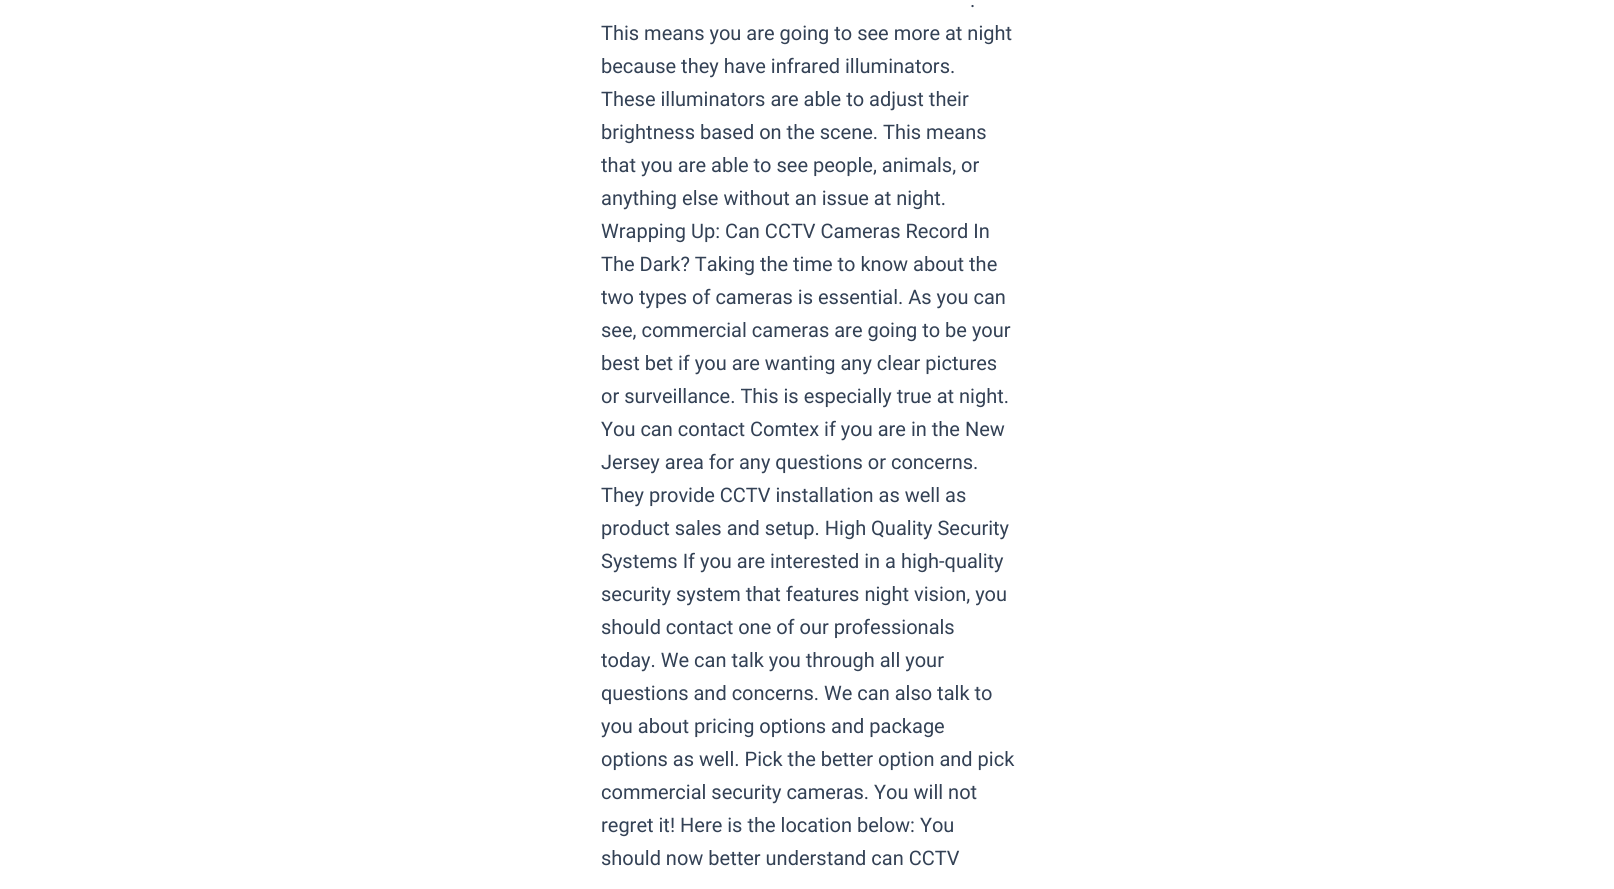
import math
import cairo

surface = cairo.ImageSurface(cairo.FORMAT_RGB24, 1614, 889)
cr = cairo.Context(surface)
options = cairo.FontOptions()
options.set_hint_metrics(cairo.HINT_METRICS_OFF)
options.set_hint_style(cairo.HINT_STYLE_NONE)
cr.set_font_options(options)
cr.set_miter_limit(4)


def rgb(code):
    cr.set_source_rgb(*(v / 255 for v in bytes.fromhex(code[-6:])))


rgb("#ffffff")
cr.paint()
cr.select_font_face("Roboto")
cr.set_font_size(20)
rgb("#334155")
for x, y, s in [
    (970, 7, "."),
    (601, 40, "This means you are going to see more at night"),
    (601, 73, "because they have infrared illuminators."),
    (601, 106, "These illuminators are able to adjust their"),
    (601, 139, "brightness based on the scene. This means"),
    (601, 172, "that you are able to see people, animals, or"),
    (601, 205, "anything else without an issue at night."),
    (601, 238, "Wrapping Up: Can CCTV Cameras Record In"),
    (601, 271, "The Dark? Taking the time to know about the"),
    (601, 304, "two types of cameras is essential. As you can"),
    (601, 337, "see, commercial cameras are going to be your"),
    (601, 370, "best bet if you are wanting any clear pictures"),
    (601, 403, "or surveillance. This is especially true at night."),
    (601, 436, "You can contact Comtex if you are in the New"),
    (601, 469, "Jersey area for any questions or concerns."),
    (601, 502, "They provide CCTV installation as well as"),
    (601, 535, "product sales and setup. High Quality Security"),
    (601, 568, "Systems If you are interested in a high-quality"),
    (601, 601, "security system that features night vision, you"),
    (601, 634, "should contact one of our professionals"),
    (601, 667, "today. We can talk you through all your"),
    (601, 700, "questions and concerns. We can also talk to"),
    (601, 733, "you about pricing options and package"),
    (601, 766, "options as well. Pick the better option and pick"),
    (601, 799, "commercial security cameras. You will not"),
    (601, 832, "regret it! Here is the location below: You"),
    (601, 865, "should now better understand can CCTV"),
]:
    cr.move_to(x, y)
    cr.show_text(s)
surface.write_to_png("page.png")
